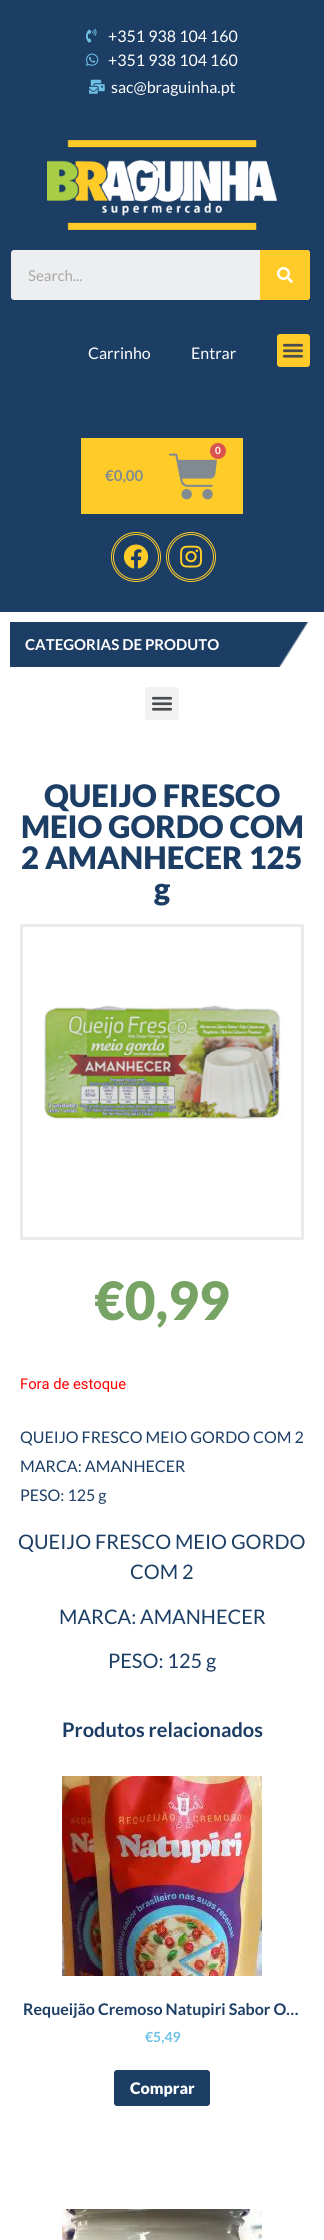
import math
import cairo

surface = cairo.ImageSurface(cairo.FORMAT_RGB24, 324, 2240)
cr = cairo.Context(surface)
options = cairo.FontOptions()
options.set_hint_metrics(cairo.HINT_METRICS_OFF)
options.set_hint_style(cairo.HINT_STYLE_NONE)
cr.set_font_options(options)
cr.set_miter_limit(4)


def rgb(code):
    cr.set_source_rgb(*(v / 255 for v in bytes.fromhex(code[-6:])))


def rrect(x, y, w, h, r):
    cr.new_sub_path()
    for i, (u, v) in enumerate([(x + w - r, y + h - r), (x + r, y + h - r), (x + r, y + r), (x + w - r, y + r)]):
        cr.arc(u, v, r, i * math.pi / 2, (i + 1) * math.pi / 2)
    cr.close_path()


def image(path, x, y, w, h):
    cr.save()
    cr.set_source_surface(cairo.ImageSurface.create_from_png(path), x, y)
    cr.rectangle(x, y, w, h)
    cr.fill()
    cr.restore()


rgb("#ffffff")
cr.paint()
rgb("#1c3e65")
cr.rectangle(0, 0, 324, 612)
cr.fill()
image("img/1.png", 86, 28, 11, 15)
image("img/2.png", 86, 53, 13, 13)
image("img/3.png", 89, 79, 16, 15)
image("img/4.png", 47, 140, 230, 90)
rgb("#eceeef")
rrect(11, 250, 299, 50, 3)
cr.fill()
rgb("#fecb28")
cr.new_path()
cr.move_to(260, 250)
cr.line_to(307, 250)
cr.curve_to(308.5, 250, 310, 251.5, 310, 253)
cr.line_to(310, 297)
cr.curve_to(310, 298.5, 308.5, 300, 307, 300)
cr.line_to(260, 300)
cr.close_path()
cr.fill()
image("img/5.png", 277, 267, 16, 16)
rrect(277, 334, 33, 33, 3)
cr.fill()
image("img/6.png", 282, 343, 22, 15)
cr.rectangle(81, 438, 162, 76)
cr.fill()
image("img/7.png", 169, 453, 48, 47)
rgb("#d9534f")
cr.arc(218, 451, 8, 0, 2 * math.pi)
cr.fill()
cr.arc(136, 557, 24.5, 0, 2 * math.pi)
rgb("#fecc28")
cr.set_line_width(1)
cr.stroke()
cr.arc(136, 557, 22.5, 0, 2 * math.pi)
cr.stroke()
image("img/8.png", 123, 544, 26, 25)
cr.arc(191, 557, 24.5, 0, 2 * math.pi)
cr.stroke()
cr.arc(191, 557, 22.5, 0, 2 * math.pi)
cr.stroke()
image("img/9.png", 180, 545, 22, 23)
image("img/10.png", 10, 622, 299, 45)
rgb("#f2f2f2")
rrect(145, 687, 34, 33, 3)
cr.fill()
image("img/11.png", 151, 696, 22, 15)
cr.rectangle(21.5, 925.5, 281, 313)
rgb("#ebebeb")
cr.set_line_width(3)
cr.stroke()
image("img/12.png", 43, 1005, 240, 115)
image("img/13.png", 62, 1776, 200, 200)
rgb("#1c3e65")
rrect(114, 2070, 96, 36, 3)
cr.fill()
image("img/14.png", 62, 2209, 200, 31)
cr.select_font_face("Lato")
cr.set_font_size(16)
rgb("#ffffff")
for x, y, s in [
    (108, 42, "+351 938 104 160"),
    (108, 66, "+351 938 104 160"),
    (111, 93, "sac@braguinha.pt"),
]:
    cr.move_to(x, y)
    cr.show_text(s)
cr.set_font_size(15)
rgb("#a8a8a9")
cr.move_to(28, 281)
cr.show_text("Search...")
cr.set_font_size(16)
rgb("#ffffff")
cr.move_to(88, 359)
cr.show_text("Carrinho")
cr.move_to(191, 359)
cr.show_text("Entrar")
cr.select_font_face("Lato", cairo.FONT_SLANT_NORMAL, cairo.FONT_WEIGHT_BOLD)
cr.set_font_size(10)
cr.move_to(215, 454)
cr.show_text("0")
cr.set_font_size(15)
rgb("#818a91")
cr.move_to(105, 481)
cr.show_text("€0,00")
rgb("#ffffff")
cr.move_to(25, 650)
cr.show_text("CATEGORIAS DE PRODUTO")
cr.select_font_face("Lato Black")
cr.set_font_size(31)
rgb("#1c3e65")
for x, y, s in [
    (44, 807, "QUEIJO FRESCO"),
    (21, 838, "MEIO GORDO COM"),
    (21, 869, "2 AMANHECER 125"),
    (154, 900, "g"),
]:
    cr.move_to(x, y)
    cr.show_text(s)
cr.set_font_size(53)
rgb("#77a464")
cr.move_to(94, 1320)
cr.show_text("€0,99")
cr.select_font_face("Roboto")
cr.set_font_size(14.75)
rgb("#ff0000")
cr.move_to(20, 1389)
cr.show_text("Fora de estoque")
cr.select_font_face("Lato")
cr.set_font_size(16)
rgb("#1c3e65")
for x, y, s in [
    (20, 1443, "QUEIJO FRESCO MEIO GORDO COM 2"),
    (20, 1472, "MARCA: AMANHECER"),
    (20, 1501, "PESO: 125 g"),
]:
    cr.move_to(x, y)
    cr.show_text(s)
cr.set_font_size(20)
for x, y, s in [
    (18, 1549, "QUEIJO FRESCO MEIO GORDO"),
    (130, 1579, "COM 2"),
    (59, 1624, "MARCA: AMANHECER"),
    (108, 1668, "PESO: 125 g"),
]:
    cr.move_to(x, y)
    cr.show_text(s)
cr.select_font_face("Lato", cairo.FONT_SLANT_NORMAL, cairo.FONT_WEIGHT_BOLD)
cr.move_to(62, 1737)
cr.show_text("Produtos relacionados")
cr.set_font_size(16)
cr.move_to(23, 2015)
cr.show_text("Requeijão Cremoso Natupiri Sabor O…")
cr.set_font_size(14)
rgb("#6ec1e4")
cr.move_to(145, 2042)
cr.show_text("€5,49")
cr.select_font_face("Lato Black")
cr.set_font_size(16)
rgb("#ffffff")
cr.move_to(130, 2094)
cr.show_text("Comprar")
surface.write_to_png("page.png")
